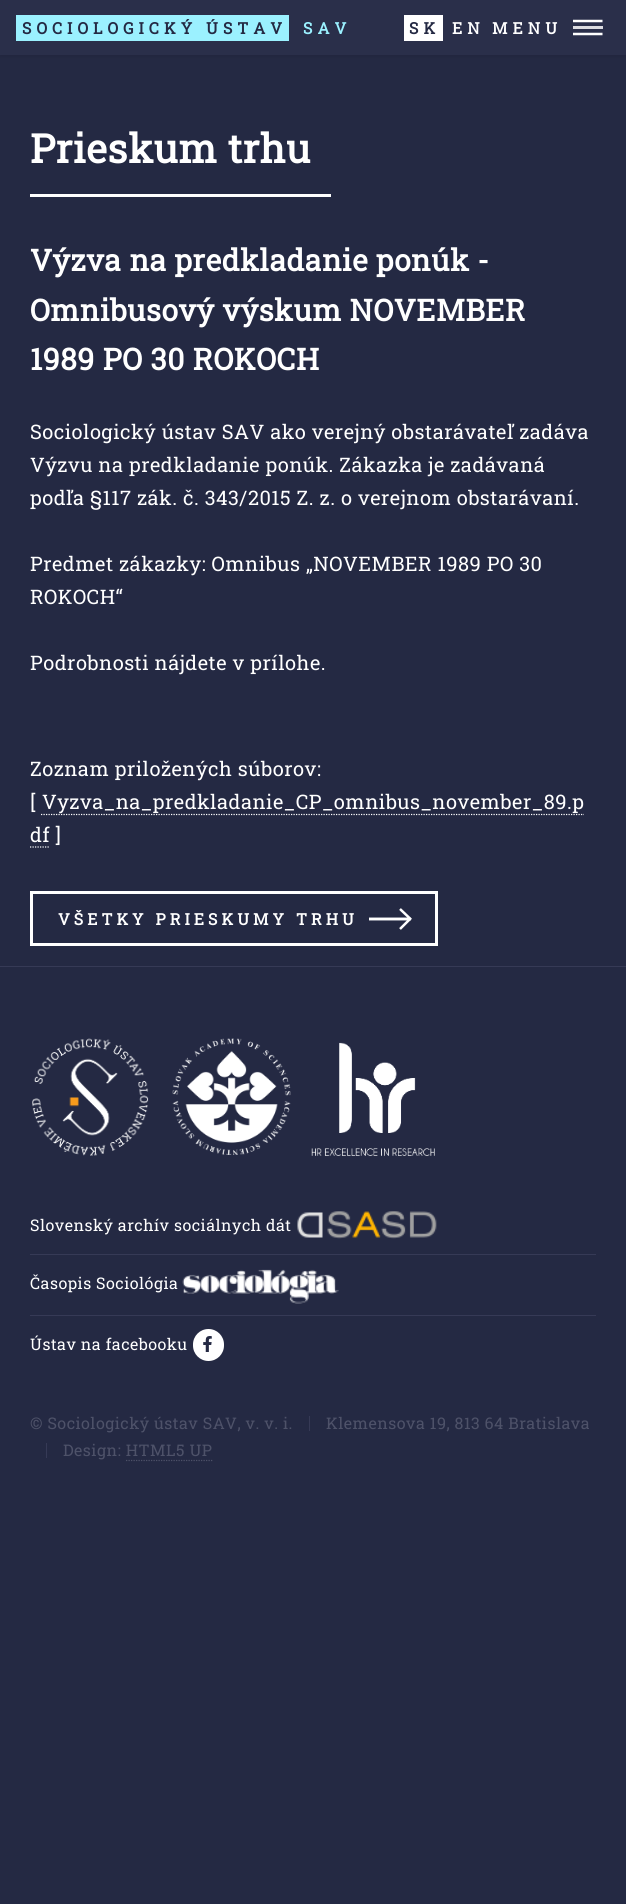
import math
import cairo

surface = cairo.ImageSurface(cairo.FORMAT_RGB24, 626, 1904)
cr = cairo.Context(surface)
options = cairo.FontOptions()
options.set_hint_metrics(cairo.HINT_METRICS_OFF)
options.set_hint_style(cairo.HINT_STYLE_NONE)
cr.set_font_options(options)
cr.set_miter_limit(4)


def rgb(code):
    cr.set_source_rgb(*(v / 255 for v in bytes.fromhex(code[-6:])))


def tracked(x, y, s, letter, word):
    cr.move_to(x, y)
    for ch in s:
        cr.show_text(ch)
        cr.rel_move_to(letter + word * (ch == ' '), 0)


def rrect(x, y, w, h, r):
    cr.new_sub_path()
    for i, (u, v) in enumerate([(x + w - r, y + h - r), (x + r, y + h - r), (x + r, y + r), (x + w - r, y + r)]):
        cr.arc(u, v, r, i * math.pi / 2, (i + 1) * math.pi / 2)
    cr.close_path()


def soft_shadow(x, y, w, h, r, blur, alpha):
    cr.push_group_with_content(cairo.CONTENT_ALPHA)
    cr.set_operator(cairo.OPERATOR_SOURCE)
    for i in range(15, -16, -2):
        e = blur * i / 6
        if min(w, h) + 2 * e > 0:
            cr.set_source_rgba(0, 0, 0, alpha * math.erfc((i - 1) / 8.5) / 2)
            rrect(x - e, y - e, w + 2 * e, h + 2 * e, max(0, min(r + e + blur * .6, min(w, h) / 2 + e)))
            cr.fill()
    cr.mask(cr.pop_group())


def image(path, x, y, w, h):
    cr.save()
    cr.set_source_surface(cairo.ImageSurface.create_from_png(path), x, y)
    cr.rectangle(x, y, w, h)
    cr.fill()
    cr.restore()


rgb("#242943")
cr.paint()
rgb("#000000")
soft_shadow(0, 0, 626, 55, 0, 2.5, 0.15)
for x, y, w, h, color in [
    (0, 0, 626, 55, "#2a2f4a"),
    (16, 15, 273, 26, "#9bf1ff"),
    (404, 15, 39, 26, "#ffffff"),
]:
    rgb(color)
    cr.rectangle(x, y, w, h)
    cr.fill()
cr.save()
cr.rectangle(573, 8, 30, 40)
cr.clip()
cr.new_path()
cr.move_to(572.5, 21)
cr.line_to(602.5, 21)
cr.move_to(572.5, 34)
cr.line_to(602.5, 34)
cr.set_line_width(2.5)
cr.stroke()
cr.restore()
for x, y, w, h, color in [
    (573, 26, 30, 3, "#dcdce1"),
    (0, 966, 626, 1, "#363a56"),
    (30, 194, 301, 3, "#ffffff"),
]:
    rgb(color)
    cr.rectangle(x, y, w, h)
    cr.fill()
cr.new_path()
cr.move_to(41, 814.5)
cr.line_to(584, 814.5)
cr.set_line_width(1.2)
cr.set_dash([1.25, 1.25])
cr.stroke()
cr.new_path()
cr.move_to(30, 847)
cr.line_to(50, 847)
cr.stroke()
cr.rectangle(31.5, 892.5, 405, 52)
cr.set_line_width(3)
cr.set_dash([])
cr.stroke()
cr.new_path()
cr.move_to(369, 919)
cr.line_to(411, 919)
cr.move_to(400, 909)
cr.line_to(411, 919.5)
cr.move_to(400, 929)
cr.line_to(411, 918)
cr.set_line_width(2.5)
cr.stroke()
cr.new_path()
cr.move_to(369, 919)
cr.line_to(411, 919)
cr.stroke()
image("img/1.png", 32, 1038, 117, 118)
image("img/2.png", 172, 1038, 119, 117)
image("img/3.png", 311, 1042, 124, 114)
image("img/4.png", 297, 1211, 140, 28)
rgb("#363a56")
cr.rectangle(30, 1254, 566, 1)
cr.fill()
image("img/5.png", 182, 1269, 157, 35)
cr.rectangle(30, 1315, 566, 1)
cr.fill()
rgb("#ffffff")
rrect(193, 1329, 31, 32, 15.5)
cr.fill()
image("img/6.png", 203, 1336, 9, 16)
rgb("#363a56")
cr.rectangle(309, 1416, 1, 15)
cr.fill()
cr.rectangle(46, 1443, 1, 15)
cr.fill()
cr.new_path()
cr.move_to(126, 1460.5)
cr.line_to(212.5, 1460.5)
rgb("#4e5269")
cr.set_line_width(1.2)
cr.set_dash([1.25, 1.25])
cr.stroke()
cr.select_font_face("Roboto Slab", cairo.FONT_SLANT_NORMAL, cairo.FONT_WEIGHT_BOLD)
cr.set_font_size(16)
rgb("#242943")
tracked(22, 34, "SOCIOLOGICKÝ ÚSTAV", 5, 0)
rgb("#9bf1ff")
tracked(303, 34, "SAV", 5, 0)
rgb("#242943")
tracked(409, 34, "SK", 5, 0)
rgb("#ffffff")
tracked(452, 34, "EN", 5, 0)
tracked(492, 34, "MENU", 5, 0)
cr.set_font_size(40)
tracked(30, 163, "Prieskum trhu", 0.5, 0)
cr.set_font_size(30)
for x, y, s in [
    (30, 271, "Výzva na predkladanie ponúk -"),
    (30, 321, "Omnibusový výskum NOVEMBER"),
    (30, 370, "1989 PO 30 ROKOCH"),
]:
    tracked(x, y, s, 0.5, 0)
cr.select_font_face("Roboto Slab")
cr.set_font_size(20)
for x, y, s in [
    (30, 439, "Sociologický ústav SAV ako verejný obstarávateľ zadáva"),
    (30, 472, "Výzvu na predkladanie ponúk. Zákazka je zadávaná"),
    (30, 505, "podľa §117 zák. č. 343/2015 Z. z. o verejnom obstarávaní."),
    (30, 571, "Predmet zákazky: Omnibus „NOVEMBER 1989 PO 30"),
    (30, 604, "ROKOCH“"),
    (30, 670, "Podrobnosti nájdete v prílohe."),
    (30, 776, "Zoznam priložených súborov:"),
    (30, 809, "["),
    (42, 809, "Vyzva_na_predkladanie_CP_omnibus_november_89.p"),
    (30, 842, "df ]"),
]:
    tracked(x, y, s, 0.5, 0)
cr.select_font_face("Roboto Slab", cairo.FONT_SLANT_NORMAL, cairo.FONT_WEIGHT_BOLD)
cr.set_font_size(16)
tracked(58, 925, "VŠETKY PRIESKUMY TRHU", 4, 0)
cr.select_font_face("Roboto Slab")
for x, y, s in [
    (30, 1231, "Slovenský archív sociálnych dát"),
    (30, 1289, "Časopis Sociológia"),
    (30, 1350, "Ústav na facebooku"),
]:
    tracked(x, y, s, 0.5, 0)
rgb("#4e5269")
for x, y, s in [
    (30, 1429, "© Sociologický ústav SAV, v. v. i."),
    (326, 1429, "Klemensova 19, 813 64 Bratislava"),
    (63, 1456, "Design: HTML5 UP"),
]:
    tracked(x, y, s, 0.5, 0)
surface.write_to_png("page.png")
